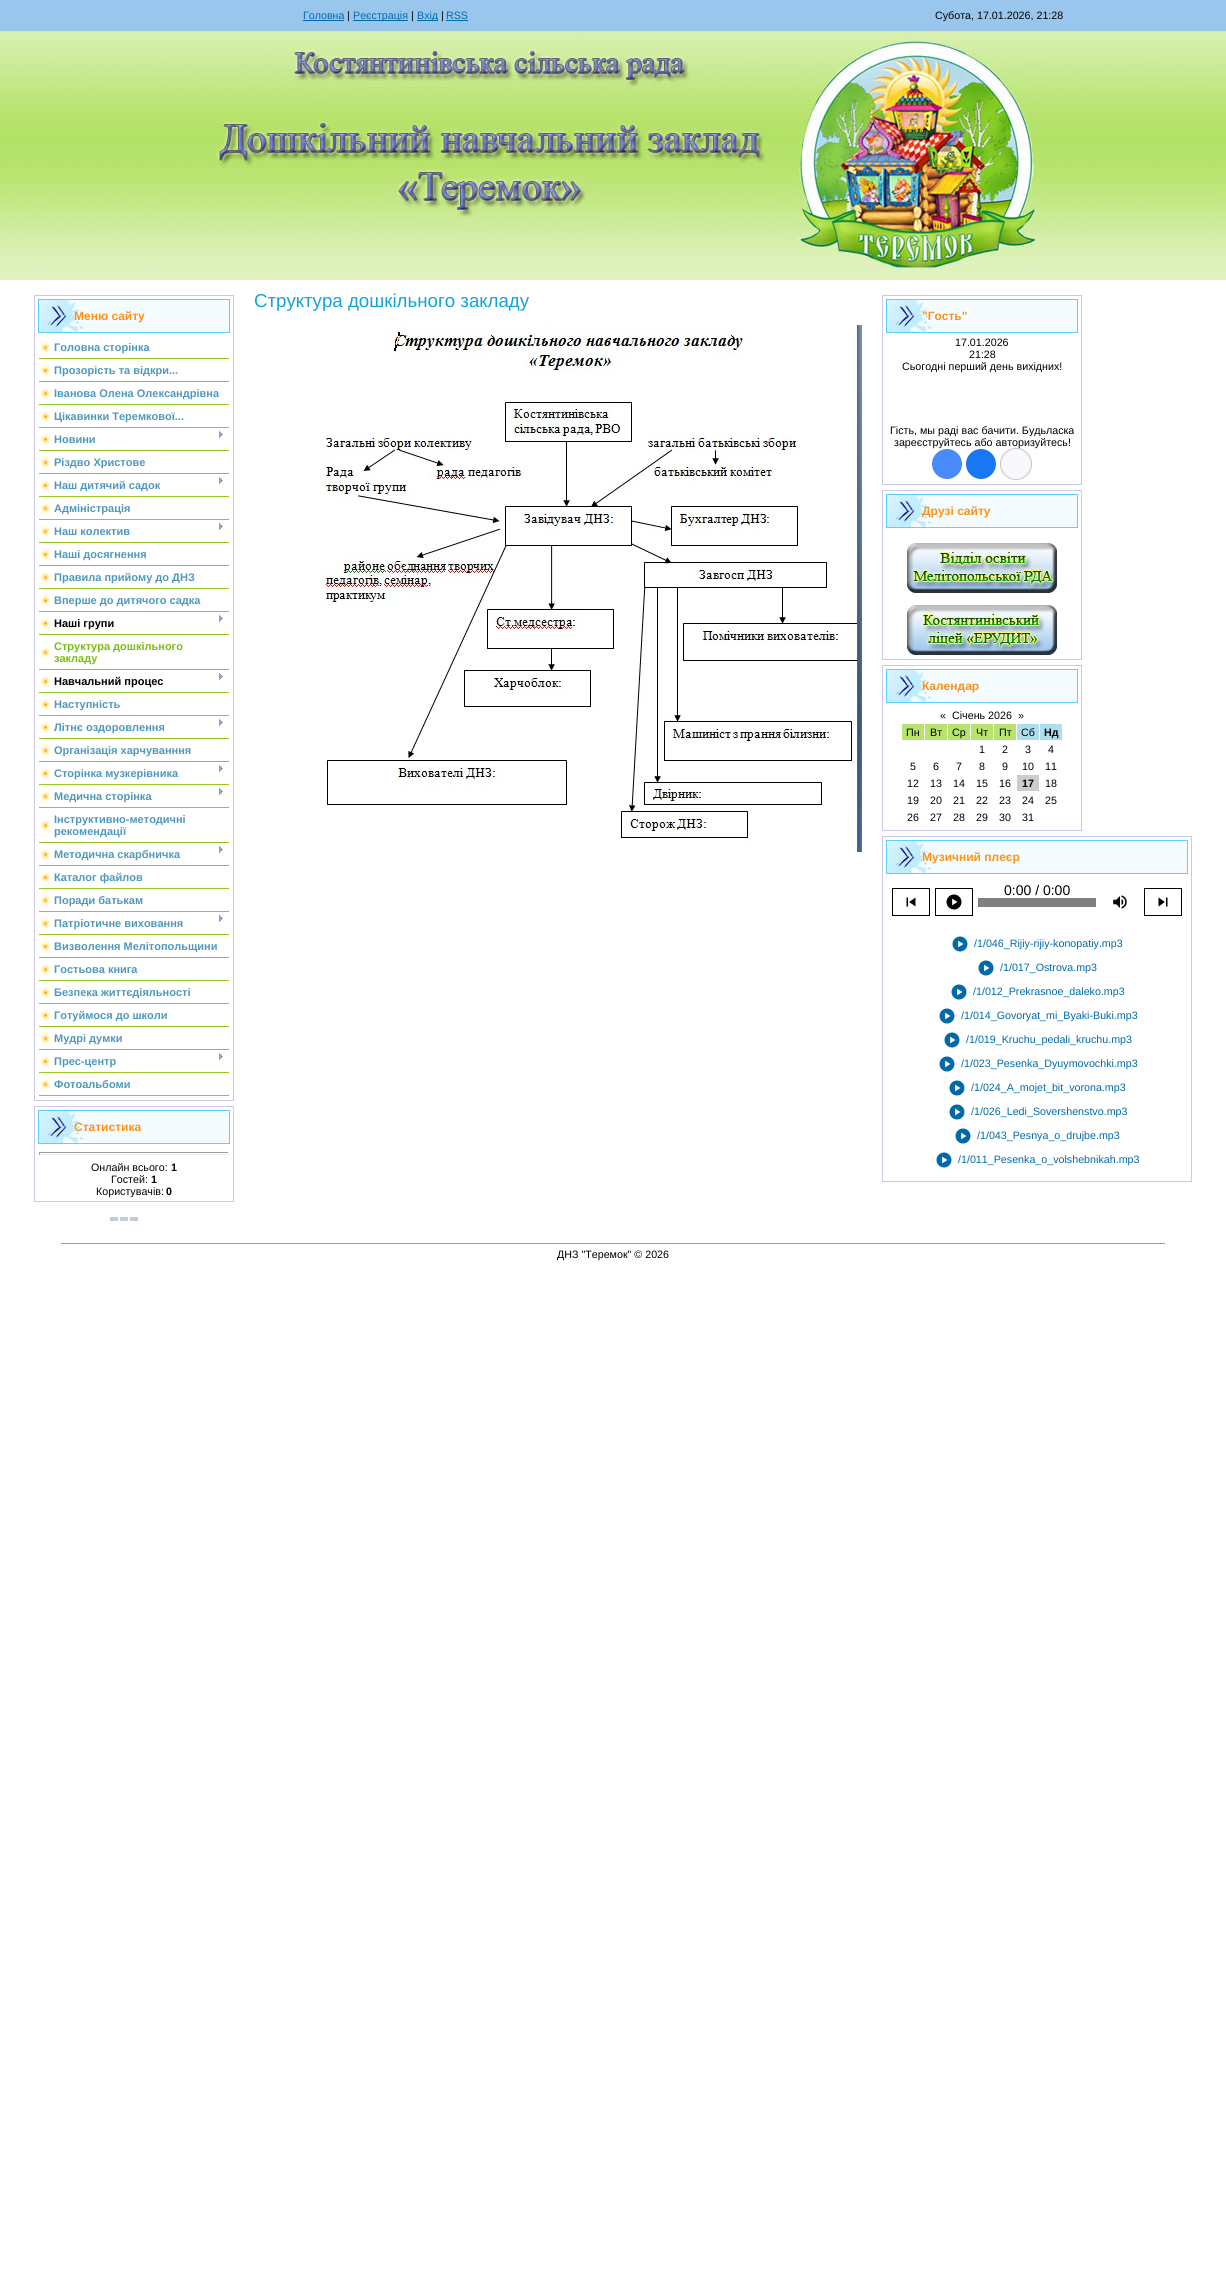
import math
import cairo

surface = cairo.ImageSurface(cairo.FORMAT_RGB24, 1226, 2271)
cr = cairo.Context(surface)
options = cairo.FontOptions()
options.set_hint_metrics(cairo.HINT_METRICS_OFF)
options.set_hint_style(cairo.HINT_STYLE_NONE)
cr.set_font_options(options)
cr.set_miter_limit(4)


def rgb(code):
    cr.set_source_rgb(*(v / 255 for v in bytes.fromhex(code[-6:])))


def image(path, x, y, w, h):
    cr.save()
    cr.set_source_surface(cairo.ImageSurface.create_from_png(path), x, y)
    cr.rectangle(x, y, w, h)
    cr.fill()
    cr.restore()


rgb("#ffffff")
cr.paint()
image("img/1.png", 0, 0, 1226, 280)
image("img/2.png", 214, 39, 825, 233)
for x, y, w, h, color in [
    (303, 20, 41, 1, "#0069a9"),
    (353, 20, 55, 1, "#0069a9"),
    (417, 20, 21, 1, "#0069a9"),
    (446, 20, 22, 1, "#0069a9"),
]:
    rgb(color)
    cr.rectangle(x, y, w, h)
    cr.fill()
image("img/3.png", 318, 325, 544, 527)
cr.rectangle(34.5, 295.5, 199, 805)
rgb("#cacae6")
cr.set_line_width(1)
cr.stroke()
rgb("#f5fcff")
cr.rectangle(83, 300, 146, 32)
cr.fill()
image("img/4.png", 39, 300, 44, 32)
cr.rectangle(38.5, 299.5, 191, 33)
rgb("#5bd1fc")
cr.stroke()
image("img/5.png", 39, 341, 11, 12)
rgb("#97c821")
cr.rectangle(39, 358, 190, 1)
cr.fill()
image("img/5.png", 39, 364, 11, 12)
cr.rectangle(39, 381, 190, 1)
cr.fill()
image("img/5.png", 39, 387, 11, 12)
cr.rectangle(39, 404, 190, 1)
cr.fill()
image("img/5.png", 39, 410, 11, 12)
cr.rectangle(39, 427, 190, 1)
cr.fill()
image("img/5.png", 39, 433, 11, 12)
cr.rectangle(39, 450, 190, 1)
cr.fill()
image("img/6.png", 219, 431, 4, 7)
image("img/5.png", 39, 456, 11, 12)
cr.rectangle(39, 473, 190, 1)
cr.fill()
image("img/5.png", 39, 479, 11, 12)
cr.rectangle(39, 496, 190, 1)
cr.fill()
image("img/6.png", 219, 477, 4, 7)
image("img/5.png", 39, 502, 11, 12)
cr.rectangle(39, 519, 190, 1)
cr.fill()
image("img/5.png", 39, 525, 11, 12)
cr.rectangle(39, 542, 190, 1)
cr.fill()
image("img/6.png", 219, 523, 4, 7)
image("img/5.png", 39, 548, 11, 12)
cr.rectangle(39, 565, 190, 1)
cr.fill()
image("img/5.png", 39, 571, 11, 12)
cr.rectangle(39, 588, 190, 1)
cr.fill()
image("img/5.png", 39, 594, 11, 12)
cr.rectangle(39, 611, 190, 1)
cr.fill()
image("img/5.png", 39, 617, 11, 12)
cr.rectangle(39, 634, 190, 1)
cr.fill()
image("img/6.png", 219, 615, 4, 7)
image("img/5.png", 39, 646, 11, 12)
cr.rectangle(39, 669, 190, 1)
cr.fill()
image("img/5.png", 39, 675, 11, 12)
cr.rectangle(39, 692, 190, 1)
cr.fill()
image("img/6.png", 219, 673, 4, 7)
image("img/5.png", 39, 698, 11, 12)
cr.rectangle(39, 715, 190, 1)
cr.fill()
image("img/5.png", 39, 721, 11, 12)
cr.rectangle(39, 738, 190, 1)
cr.fill()
image("img/6.png", 219, 719, 4, 7)
image("img/5.png", 39, 744, 11, 12)
cr.rectangle(39, 761, 190, 1)
cr.fill()
image("img/5.png", 39, 767, 11, 12)
cr.rectangle(39, 784, 190, 1)
cr.fill()
image("img/6.png", 219, 765, 4, 7)
image("img/5.png", 39, 790, 11, 12)
cr.rectangle(39, 807, 190, 1)
cr.fill()
image("img/6.png", 219, 788, 4, 7)
image("img/5.png", 39, 819, 11, 12)
cr.rectangle(39, 842, 190, 1)
cr.fill()
image("img/5.png", 39, 848, 11, 12)
cr.rectangle(39, 865, 190, 1)
cr.fill()
image("img/6.png", 219, 846, 4, 7)
image("img/5.png", 39, 871, 11, 12)
cr.rectangle(39, 888, 190, 1)
cr.fill()
image("img/5.png", 39, 894, 11, 12)
cr.rectangle(39, 911, 190, 1)
cr.fill()
image("img/5.png", 39, 917, 11, 12)
cr.rectangle(39, 934, 190, 1)
cr.fill()
image("img/6.png", 219, 915, 4, 7)
image("img/5.png", 39, 940, 11, 12)
cr.rectangle(39, 957, 190, 1)
cr.fill()
image("img/5.png", 39, 963, 11, 12)
cr.rectangle(39, 980, 190, 1)
cr.fill()
image("img/5.png", 39, 986, 11, 12)
cr.rectangle(39, 1003, 190, 1)
cr.fill()
image("img/5.png", 39, 1009, 11, 12)
cr.rectangle(39, 1026, 190, 1)
cr.fill()
image("img/5.png", 39, 1032, 11, 12)
cr.rectangle(39, 1049, 190, 1)
cr.fill()
image("img/5.png", 39, 1055, 11, 12)
cr.rectangle(39, 1072, 190, 1)
cr.fill()
image("img/6.png", 219, 1053, 4, 7)
image("img/5.png", 39, 1078, 11, 12)
cr.rectangle(39, 1095, 190, 1)
cr.fill()
cr.rectangle(34.5, 1106.5, 199, 95)
rgb("#cacae6")
cr.stroke()
rgb("#f5fcff")
cr.rectangle(83, 1111, 146, 32)
cr.fill()
image("img/4.png", 39, 1111, 44, 32)
cr.rectangle(38.5, 1110.5, 191, 33)
rgb("#5bd1fc")
cr.stroke()
for x, y, w, h, color in [
    (39, 1152, 190, 1, "#9f9f9f"),
    (228, 1152, 1, 3, "#eeeeee"),
    (39, 1154, 190, 1, "#eeeeee"),
    (39, 1152, 1, 3, "#9f9f9f"),
]:
    rgb(color)
    cr.rectangle(x, y, w, h)
    cr.fill()
image("img/7.png", 110, 1217, 28, 4)
cr.rectangle(882.5, 295.5, 199, 189)
rgb("#cacae6")
cr.stroke()
rgb("#f5fcff")
cr.rectangle(931, 300, 146, 32)
cr.fill()
image("img/4.png", 887, 300, 44, 32)
cr.rectangle(886.5, 299.5, 191, 33)
rgb("#5bd1fc")
cr.stroke()
rgb("#498bfa")
cr.arc(947, 464, 15, 0, 2 * math.pi)
cr.fill()
rgb("#1877f2")
cr.arc(981, 464, 15, 0, 2 * math.pi)
cr.fill()
cr.rectangle(882.5, 490.5, 199, 169)
rgb("#cacae6")
cr.stroke()
rgb("#f5fcff")
cr.rectangle(931, 495, 146, 32)
cr.fill()
image("img/4.png", 887, 495, 44, 32)
cr.rectangle(886.5, 494.5, 191, 33)
rgb("#5bd1fc")
cr.stroke()
image("img/8.png", 907, 543, 150, 50)
image("img/9.png", 907, 605, 150, 50)
cr.rectangle(882.5, 665.5, 199, 165)
rgb("#cacae6")
cr.stroke()
rgb("#f5fcff")
cr.rectangle(931, 670, 146, 32)
cr.fill()
image("img/4.png", 887, 670, 44, 32)
cr.rectangle(886.5, 669.5, 191, 33)
rgb("#5bd1fc")
cr.stroke()
for x, y, w, h, color in [
    (902, 724, 22, 16, "#b7e36e"),
    (925, 724, 22, 16, "#b7e36e"),
    (948, 724, 22, 16, "#b7e36e"),
    (971, 724, 22, 16, "#b7e36e"),
    (994, 724, 22, 16, "#b7e36e"),
    (1017, 724, 22, 16, "#acdeee"),
    (1040, 724, 22, 16, "#acdeee"),
    (1017, 775, 22, 16, "#cccccc"),
]:
    rgb(color)
    cr.rectangle(x, y, w, h)
    cr.fill()
cr.rectangle(882.5, 836.5, 309, 345)
rgb("#cacae6")
cr.stroke()
rgb("#f5fcff")
cr.rectangle(931, 841, 256, 32)
cr.fill()
image("img/4.png", 887, 841, 44, 32)
cr.rectangle(886.5, 840.5, 301, 33)
rgb("#5bd1fc")
cr.stroke()
cr.rectangle(892.5, 888.5, 37, 27)
rgb("#000000")
cr.stroke()
image("img/10.png", 906, 897, 10, 10)
cr.rectangle(935.5, 888.5, 37, 27)
cr.stroke()
image("img/11.png", 946, 894, 16, 16)
rgb("#808080")
cr.rectangle(978, 898, 118, 9)
cr.fill()
image("img/12.png", 1113, 895, 14, 14)
cr.rectangle(1144.5, 888.5, 37, 27)
rgb("#000000")
cr.stroke()
image("img/13.png", 1158, 897, 10, 10)
image("img/14.png", 952, 936, 16, 16)
image("img/14.png", 978, 960, 16, 16)
image("img/14.png", 951, 984, 16, 16)
image("img/14.png", 939, 1008, 16, 16)
image("img/14.png", 944, 1032, 16, 16)
image("img/14.png", 939, 1056, 16, 16)
image("img/14.png", 949, 1080, 16, 16)
image("img/14.png", 949, 1104, 16, 16)
image("img/14.png", 955, 1128, 16, 16)
image("img/14.png", 936, 1152, 16, 16)
rgb("#999999")
cr.rectangle(61, 1243, 1104, 1)
cr.fill()
cr.select_font_face("Liberation Sans")
cr.set_font_size(10.7)
rgb("#0069a9")
cr.move_to(303, 19)
cr.show_text("Головна")
rgb("#000000")
cr.move_to(347, 19)
cr.show_text("|")
rgb("#0069a9")
cr.move_to(353, 19)
cr.show_text("Реєстрація")
rgb("#000000")
cr.move_to(411, 19)
cr.show_text("|")
rgb("#0069a9")
cr.move_to(417, 19)
cr.show_text("Вхід")
rgb("#000000")
cr.move_to(441, 19)
cr.show_text("|")
rgb("#0069a9")
cr.move_to(446, 19)
cr.show_text("RSS")
rgb("#000000")
cr.move_to(935, 19)
cr.show_text("Субота, 17.01.2026, 21:28")
cr.set_font_size(18.7)
rgb("#12a4d8")
cr.move_to(254, 307)
cr.show_text("Структура дошкільного закладу")
cr.select_font_face("Liberation Sans", cairo.FONT_SLANT_NORMAL, cairo.FONT_WEIGHT_BOLD)
cr.set_font_size(12)
rgb("#ff9115")
cr.move_to(74, 320)
cr.show_text("Меню сайту")
cr.set_font_size(11)
rgb("#4f98bc")
for x, y, s in [
    (54, 351, "Головна сторінка"),
    (54, 374, "Прозорість та відкри..."),
    (54, 397, "Іванова Олена Олександрівна"),
    (54, 420, "Цікавинки Теремкової..."),
    (54, 443, "Новини"),
    (54, 466, "Різдво Христове"),
    (54, 489, "Наш дитячий садок"),
    (54, 512, "Адміністрація"),
    (54, 535, "Наш колектив"),
    (54, 558, "Наші досягнення"),
    (54, 581, "Правила прийому до ДНЗ"),
    (54, 604, "Вперше до дитячого садка"),
]:
    cr.move_to(x, y)
    cr.show_text(s)
rgb("#000000")
cr.move_to(54, 627)
cr.show_text("Наші групи")
rgb("#79bd11")
cr.move_to(54, 650)
cr.show_text("Структура дошкільного")
cr.move_to(54, 662)
cr.show_text("закладу")
rgb("#000000")
cr.move_to(54, 685)
cr.show_text("Навчальний процес")
rgb("#4f98bc")
for x, y, s in [
    (54, 708, "Наступність"),
    (54, 731, "Літнє оздоровлення"),
    (54, 754, "Організація харчуванння"),
    (54, 777, "Сторінка музкерівника"),
    (54, 800, "Медична сторінка"),
    (54, 823, "Інструктивно-методичні"),
    (54, 835, "рекомендації"),
    (54, 858, "Методична скарбничка"),
    (54, 881, "Каталог файлов"),
    (54, 904, "Поради батькам"),
    (54, 927, "Патріотичне виховання"),
    (54, 950, "Визволення Мелітопольщини"),
    (54, 973, "Гостьова книга"),
    (54, 996, "Безпека життєдіяльності"),
    (54, 1019, "Готуймося до школи"),
    (54, 1042, "Мудрі думки"),
    (54, 1065, "Прес-центр"),
    (54, 1088, "Фотоальбоми"),
]:
    cr.move_to(x, y)
    cr.show_text(s)
cr.set_font_size(12)
rgb("#ff9115")
cr.move_to(74, 1131)
cr.show_text("Статистика")
cr.select_font_face("Liberation Sans")
cr.set_font_size(10.7)
rgb("#000000")
cr.move_to(91, 1171)
cr.show_text("Онлайн всього:")
cr.select_font_face("Liberation Sans", cairo.FONT_SLANT_NORMAL, cairo.FONT_WEIGHT_BOLD)
cr.move_to(171, 1171)
cr.show_text("1")
cr.select_font_face("Liberation Sans")
cr.move_to(111, 1183)
cr.show_text("Гостей:")
cr.select_font_face("Liberation Sans", cairo.FONT_SLANT_NORMAL, cairo.FONT_WEIGHT_BOLD)
cr.move_to(151, 1183)
cr.show_text("1")
cr.select_font_face("Liberation Sans")
cr.move_to(96, 1195)
cr.show_text("Користувачів:")
cr.select_font_face("Liberation Sans", cairo.FONT_SLANT_NORMAL, cairo.FONT_WEIGHT_BOLD)
cr.move_to(166, 1195)
cr.show_text("0")
cr.set_font_size(12)
rgb("#ff9115")
cr.move_to(922, 320)
cr.show_text("\"Гость\"")
cr.select_font_face("Liberation Sans")
cr.set_font_size(10.7)
rgb("#000000")
for x, y, s in [
    (955, 346, "17.01.2026"),
    (969, 358, "21:28"),
    (902, 370, "Сьогодні перший день вихідних!"),
    (890, 434, "Гість, мы раді вас бачити. Будьласка"),
    (894, 446, "зареєструйтесь або авторизуйтесь!"),
]:
    cr.move_to(x, y)
    cr.show_text(s)
rgb("#f8f8fc")
cr.new_path()
cr.arc(1016, 464, 15.5, 0, 2 * math.pi)
cr.fill_preserve()
rgb("#c4c4c4")
cr.stroke()
cr.select_font_face("Liberation Sans", cairo.FONT_SLANT_NORMAL, cairo.FONT_WEIGHT_BOLD)
cr.set_font_size(12)
rgb("#ff9115")
cr.move_to(922, 515)
cr.show_text("Друзі сайту")
cr.move_to(922, 690)
cr.show_text("Календар")
cr.select_font_face("Liberation Sans")
cr.set_font_size(10.7)
rgb("#000000")
for x, y, s in [
    (940, 719, "«"),
    (952, 719, "Січень 2026"),
    (1018, 719, "»"),
    (906, 736, "Пн"),
    (930, 736, "Вт"),
    (952, 736, "Ср"),
    (976, 736, "Чт"),
    (999, 736, "Пт"),
    (1021, 736, "Сб"),
]:
    cr.move_to(x, y)
    cr.show_text(s)
cr.select_font_face("Liberation Sans", cairo.FONT_SLANT_NORMAL, cairo.FONT_WEIGHT_BOLD)
cr.move_to(1044, 736)
cr.show_text("Нд")
cr.select_font_face("Liberation Sans")
for x, y, s in [
    (979, 753, "1"),
    (1002, 753, "2"),
    (1025, 753, "3"),
    (1048, 753, "4"),
    (910, 770, "5"),
    (933, 770, "6"),
    (956, 770, "7"),
    (979, 770, "8"),
    (1002, 770, "9"),
    (1022, 770, "10"),
    (1045, 770, "11"),
    (907, 787, "12"),
    (930, 787, "13"),
    (953, 787, "14"),
    (976, 787, "15"),
    (999, 787, "16"),
]:
    cr.move_to(x, y)
    cr.show_text(s)
cr.select_font_face("Liberation Sans", cairo.FONT_SLANT_NORMAL, cairo.FONT_WEIGHT_BOLD)
cr.move_to(1022, 787)
cr.show_text("17")
cr.select_font_face("Liberation Sans")
for x, y, s in [
    (1045, 787, "18"),
    (907, 804, "19"),
    (930, 804, "20"),
    (953, 804, "21"),
    (976, 804, "22"),
    (999, 804, "23"),
    (1022, 804, "24"),
    (1045, 804, "25"),
    (907, 821, "26"),
    (930, 821, "27"),
    (953, 821, "28"),
    (976, 821, "29"),
    (999, 821, "30"),
    (1022, 821, "31"),
]:
    cr.move_to(x, y)
    cr.show_text(s)
cr.select_font_face("Liberation Sans", cairo.FONT_SLANT_NORMAL, cairo.FONT_WEIGHT_BOLD)
cr.set_font_size(12)
rgb("#ff9115")
cr.move_to(922, 861)
cr.show_text("Музичний плеєр")
cr.select_font_face("Liberation Sans")
cr.set_font_size(14)
rgb("#000000")
cr.move_to(1004, 895)
cr.show_text("0:00 / 0:00")
cr.set_font_size(10.7)
rgb("#0069a9")
for x, y, s in [
    (974, 947, "/1/046_Rijiy-rijiy-konopatiy.mp3"),
    (1000, 971, "/1/017_Ostrova.mp3"),
    (973, 995, "/1/012_Prekrasnoe_daleko.mp3"),
    (961, 1019, "/1/014_Govoryat_mi_Byaki-Buki.mp3"),
    (966, 1043, "/1/019_Kruchu_pedali_kruchu.mp3"),
    (961, 1067, "/1/023_Pesenka_Dyuymovochki.mp3"),
    (971, 1091, "/1/024_A_mojet_bit_vorona.mp3"),
    (971, 1115, "/1/026_Ledi_Sovershenstvo.mp3"),
    (977, 1139, "/1/043_Pesnya_o_drujbe.mp3"),
    (958, 1163, "/1/011_Pesenka_o_volshebnikah.mp3"),
]:
    cr.move_to(x, y)
    cr.show_text(s)
rgb("#000000")
cr.move_to(557, 1258)
cr.show_text("ДНЗ \"Теремок\" © 2026")
surface.write_to_png("page.png")
